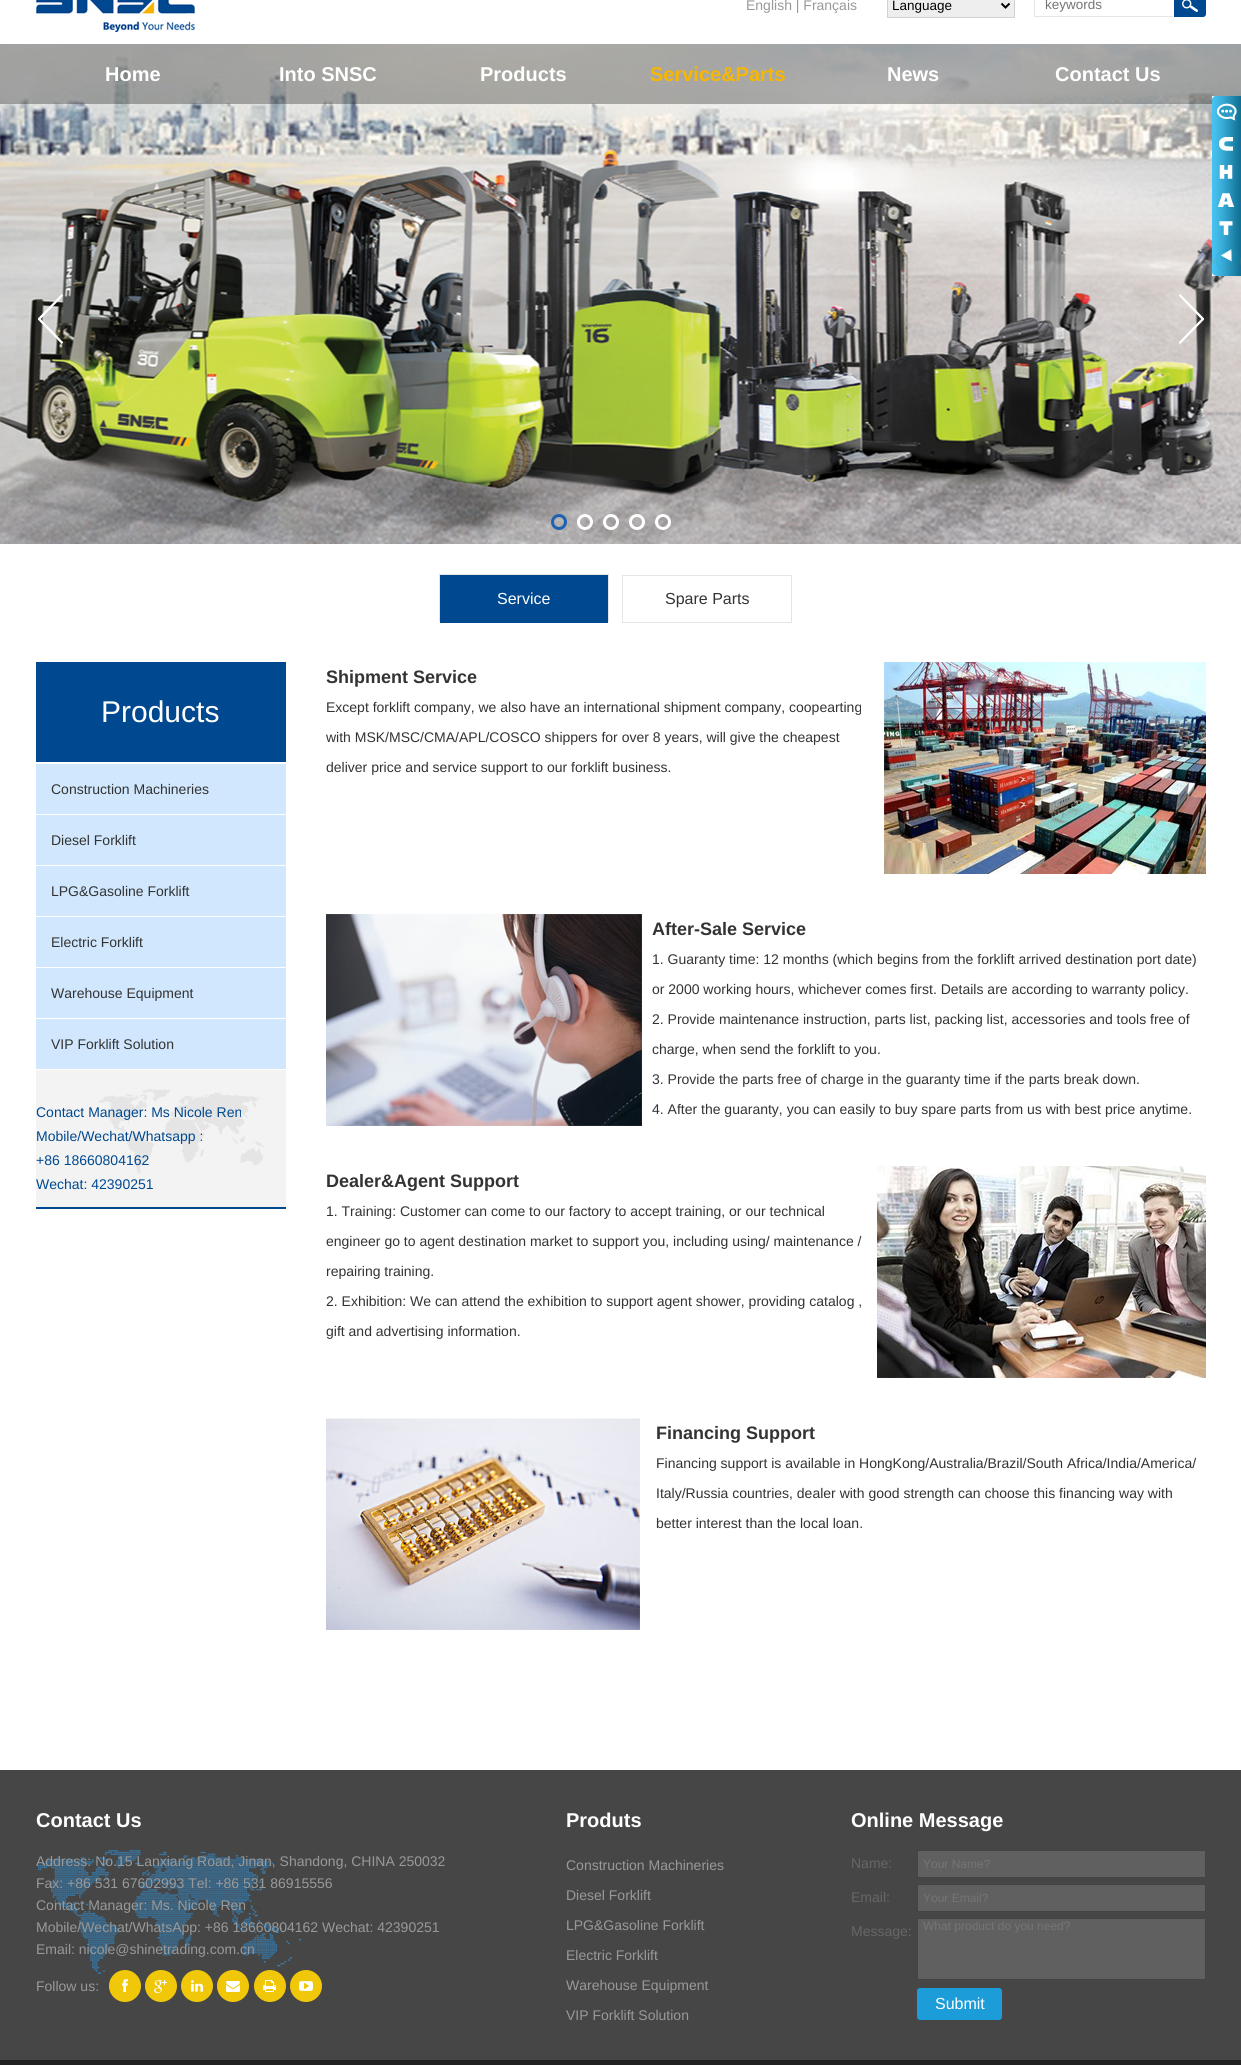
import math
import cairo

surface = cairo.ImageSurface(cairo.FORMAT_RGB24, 1241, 2065)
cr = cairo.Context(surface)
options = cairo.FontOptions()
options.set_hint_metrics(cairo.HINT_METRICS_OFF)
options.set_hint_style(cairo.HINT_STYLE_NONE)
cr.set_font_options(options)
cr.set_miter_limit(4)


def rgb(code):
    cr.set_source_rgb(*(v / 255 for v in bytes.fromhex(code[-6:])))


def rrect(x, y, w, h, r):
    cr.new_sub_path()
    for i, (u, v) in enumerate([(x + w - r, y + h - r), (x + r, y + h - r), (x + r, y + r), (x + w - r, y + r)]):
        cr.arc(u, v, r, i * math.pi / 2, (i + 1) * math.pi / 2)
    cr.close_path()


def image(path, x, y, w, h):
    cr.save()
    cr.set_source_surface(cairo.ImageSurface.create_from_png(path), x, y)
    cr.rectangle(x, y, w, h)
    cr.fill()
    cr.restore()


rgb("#ffffff")
cr.paint()
image("img/1.png", 36, 0, 159, 32)
rgb("#eeeeee")
cr.rectangle(887.5, -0.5, 127, 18)
cr.fill_preserve()
rgb("#d2d2d2")
cr.set_line_width(1)
cr.stroke()
cr.new_path()
cr.move_to(1001.5, 3.5)
cr.line_to(1005.5, 7.5)
cr.line_to(1009.5, 3.5)
rgb("#000000")
cr.set_line_width(2)
cr.stroke()
rgb("#e5e5e5")
cr.rectangle(1034, 16, 139, 1)
cr.fill()
cr.rectangle(1034, 0, 1, 17)
cr.fill()
image("img/2.png", 1174, 0, 32, 17)
image("img/3.png", 0, 44, 1241, 500)
image("img/4.png", 38, 294, 25, 50)
image("img/5.png", 1179, 294, 25, 50)
cr.arc(559, 522, 6.5, 0, 2 * math.pi)
rgb("#1d62b0")
cr.set_line_width(3)
cr.stroke()
cr.arc(585, 522, 6.5, 0, 2 * math.pi)
rgb("#ffffff")
cr.stroke()
cr.arc(611, 522, 6.5, 0, 2 * math.pi)
cr.stroke()
cr.arc(637, 522, 6.5, 0, 2 * math.pi)
cr.stroke()
cr.arc(663, 522, 6.5, 0, 2 * math.pi)
cr.stroke()
cr.set_source_rgba(0, 0, 0, 0.3)
cr.rectangle(0, 44, 1241, 60)
cr.fill()
image("img/6.png", 1212, 96, 29, 180)
cr.rectangle(439.5, 574.5, 169, 47)
rgb("#e5e5e5")
cr.set_line_width(1)
cr.stroke()
rgb("#004990")
cr.rectangle(440, 575, 168, 48)
cr.fill()
cr.rectangle(622.5, 575.5, 169, 47)
rgb("#e5e5e5")
cr.stroke()
for x, y, w, h, color in [
    (36, 662, 250, 100, "#004990"),
    (36, 764, 250, 50, "#d0e7fd"),
    (36, 815, 250, 50, "#d0e7fd"),
    (36, 866, 250, 50, "#d0e7fd"),
    (36, 917, 250, 50, "#d0e7fd"),
    (36, 968, 250, 50, "#d0e7fd"),
    (36, 1019, 250, 50, "#d0e7fd"),
]:
    rgb(color)
    cr.rectangle(x, y, w, h)
    cr.fill()
image("img/7.png", 36, 1070, 250, 137)
rgb("#004990")
cr.rectangle(36, 1207, 250, 2)
cr.fill()
image("img/8.png", 884, 662, 322, 212)
image("img/9.png", 326, 914, 317, 212)
image("img/10.png", 877, 1166, 329, 212)
image("img/11.png", 326, 1418, 314, 212)
rgb("#464646")
cr.rectangle(0, 1770, 1241, 290)
cr.fill()
image("img/12.png", 38, 1850, 263, 124)
rgb("#f0c709")
cr.arc(125, 1986, 16, 0, 2 * math.pi)
cr.fill()
image("img/13.png", 122, 1979, 6, 13)
cr.arc(161, 1986, 16, 0, 2 * math.pi)
cr.fill()
image("img/14.png", 154, 1980, 13, 13)
cr.arc(197, 1986, 16, 0, 2 * math.pi)
cr.fill()
image("img/15.png", 191, 1980, 12, 12)
cr.arc(233, 1986, 16, 0, 2 * math.pi)
cr.fill()
image("img/16.png", 226, 1981, 14, 11)
cr.arc(270, 1986, 16, 0, 2 * math.pi)
cr.fill()
image("img/17.png", 263, 1980, 13, 12)
cr.arc(306, 1986, 16, 0, 2 * math.pi)
cr.fill()
image("img/18.png", 299, 1981, 14, 10)
rgb("#606060")
cr.rectangle(917.5, 1850.5, 288, 27)
cr.fill_preserve()
rgb("#434343")
cr.stroke()
rgb("#606060")
cr.rectangle(917.5, 1884.5, 288, 27)
cr.fill_preserve()
rgb("#434343")
cr.stroke()
rgb("#606060")
cr.rectangle(917.5, 1918.5, 288, 61)
cr.fill_preserve()
rgb("#434343")
cr.stroke()
rgb("#1c9dd9")
rrect(917, 1988, 85, 32, 3)
cr.fill()
rgb("#212121")
cr.rectangle(0, 2060, 1241, 5)
cr.fill()
cr.select_font_face("Liberation Sans")
cr.set_font_size(14)
rgb("#999999")
cr.move_to(746, 10)
cr.show_text("English | Français")
cr.set_font_size(13.5)
rgb("#000000")
cr.move_to(892, 10)
cr.show_text("Language")
rgb("#757575")
cr.move_to(1045, 9)
cr.show_text("keywords")
cr.select_font_face("Liberation Sans", cairo.FONT_SLANT_NORMAL, cairo.FONT_WEIGHT_BOLD)
cr.set_font_size(20)
rgb("#ffffff")
for x, y, s in [
    (105, 81, "Home"),
    (279, 81, "Into SNSC"),
    (480, 81, "Products"),
]:
    cr.move_to(x, y)
    cr.show_text(s)
rgb("#f9b600")
cr.move_to(650, 81)
cr.show_text("Service&Parts")
rgb("#ffffff")
cr.move_to(887, 81)
cr.show_text("News")
cr.move_to(1055, 81)
cr.show_text("Contact Us")
cr.select_font_face("Liberation Sans")
cr.set_font_size(16)
cr.move_to(497, 604)
cr.show_text("Service")
rgb("#333333")
cr.move_to(665, 604)
cr.show_text("Spare Parts")
cr.set_font_size(30)
rgb("#ffffff")
cr.move_to(101, 722)
cr.show_text("Products")
cr.set_font_size(14)
rgb("#333333")
for x, y, s in [
    (51, 794, "Construction Machineries"),
    (51, 845, "Diesel Forklift"),
    (51, 896, "LPG&Gasoline Forklift"),
    (51, 947, "Electric Forklift"),
    (51, 998, "Warehouse Equipment"),
    (51, 1049, "VIP Forklift Solution"),
]:
    cr.move_to(x, y)
    cr.show_text(s)
rgb("#004990")
for x, y, s in [
    (36, 1117, "Contact Manager: Ms Nicole Ren"),
    (36, 1141, "Mobile/Wechat/Whatsapp :"),
    (36, 1165, "+86 18660804162"),
    (36, 1189, "Wechat: 42390251"),
]:
    cr.move_to(x, y)
    cr.show_text(s)
cr.select_font_face("Liberation Sans", cairo.FONT_SLANT_NORMAL, cairo.FONT_WEIGHT_BOLD)
cr.set_font_size(18)
rgb("#333333")
cr.move_to(326, 683)
cr.show_text("Shipment Service")
cr.select_font_face("Liberation Sans")
cr.set_font_size(14)
for x, y, s in [
    (326, 712, "Except forklift company, we also have an international shipment company, coopearting"),
    (326, 742, "with MSK/MSC/CMA/APL/COSCO shippers for over 8 years, will give the cheapest"),
    (326, 772, "deliver price and service support to our forklift business."),
]:
    cr.move_to(x, y)
    cr.show_text(s)
cr.select_font_face("Liberation Sans", cairo.FONT_SLANT_NORMAL, cairo.FONT_WEIGHT_BOLD)
cr.set_font_size(18)
cr.move_to(652, 935)
cr.show_text("After-Sale Service")
cr.select_font_face("Liberation Sans")
cr.set_font_size(14)
for x, y, s in [
    (652, 964, "1. Guaranty time: 12 months (which begins from the forklift arrived destination port date)"),
    (652, 994, "or 2000 working hours, whichever comes first. Details are according to warranty policy."),
    (652, 1024, "2. Provide maintenance instruction, parts list, packing list, accessories and tools free of"),
    (652, 1054, "charge, when send the forklift to you."),
    (652, 1084, "3. Provide the parts free of charge in the guaranty time if the parts break down."),
    (652, 1114, "4. After the guaranty, you can easily to buy spare parts from us with best price anytime."),
]:
    cr.move_to(x, y)
    cr.show_text(s)
cr.select_font_face("Liberation Sans", cairo.FONT_SLANT_NORMAL, cairo.FONT_WEIGHT_BOLD)
cr.set_font_size(18)
cr.move_to(326, 1187)
cr.show_text("Dealer&Agent Support")
cr.select_font_face("Liberation Sans")
cr.set_font_size(14)
for x, y, s in [
    (326, 1216, "1. Training: Customer can come to our factory to accept training, or our technical"),
    (326, 1246, "engineer go to agent destination market to support you, including using/ maintenance /"),
    (326, 1276, "repairing training."),
    (326, 1306, "2. Exhibition: We can attend the exhibition to support agent shower, providing catalog ,"),
    (326, 1336, "gift and advertising information."),
]:
    cr.move_to(x, y)
    cr.show_text(s)
cr.select_font_face("Liberation Sans", cairo.FONT_SLANT_NORMAL, cairo.FONT_WEIGHT_BOLD)
cr.set_font_size(18)
cr.move_to(656, 1439)
cr.show_text("Financing Support")
cr.select_font_face("Liberation Sans")
cr.set_font_size(14)
for x, y, s in [
    (656, 1468, "Financing support is available in HongKong/Australia/Brazil/South Africa/India/America/"),
    (656, 1498, "Italy/Russia countries, dealer with good strength can choose this financing way with"),
    (656, 1528, "better interest than the local loan."),
]:
    cr.move_to(x, y)
    cr.show_text(s)
cr.select_font_face("Liberation Sans", cairo.FONT_SLANT_NORMAL, cairo.FONT_WEIGHT_BOLD)
cr.set_font_size(20)
rgb("#ffffff")
cr.move_to(36, 1827)
cr.show_text("Contact Us")
cr.select_font_face("Liberation Sans")
cr.set_font_size(14)
rgb("#999999")
for x, y, s in [
    (36, 1866, "Address: No.15 Lanxiang Road, Jinan, Shandong, CHINA 250032"),
    (36, 1888, "Fax: +86 531 67602993 Tel: +86 531 86915556"),
    (36, 1910, "Contact Manager: Ms. Nicole Ren"),
    (36, 1932, "Mobile/Wechat/WhatsApp: +86 18660804162 Wechat: 42390251"),
    (36, 1954, "Email: nicole@shinetrading.com.cn"),
    (36, 1991, "Follow us:"),
]:
    cr.move_to(x, y)
    cr.show_text(s)
cr.select_font_face("Liberation Sans", cairo.FONT_SLANT_NORMAL, cairo.FONT_WEIGHT_BOLD)
cr.set_font_size(20)
rgb("#ffffff")
cr.move_to(566, 1827)
cr.show_text("Produts")
cr.select_font_face("Liberation Sans")
cr.set_font_size(14)
rgb("#999999")
for x, y, s in [
    (566, 1870, "Construction Machineries"),
    (566, 1900, "Diesel Forklift"),
    (566, 1930, "LPG&Gasoline Forklift"),
    (566, 1960, "Electric Forklift"),
    (566, 1990, "Warehouse Equipment"),
    (566, 2020, "VIP Forklift Solution"),
]:
    cr.move_to(x, y)
    cr.show_text(s)
cr.select_font_face("Liberation Sans", cairo.FONT_SLANT_NORMAL, cairo.FONT_WEIGHT_BOLD)
cr.set_font_size(20)
rgb("#ffffff")
cr.move_to(851, 1827)
cr.show_text("Online Message")
cr.select_font_face("Liberation Sans")
cr.set_font_size(14)
rgb("#666666")
cr.move_to(851, 1868)
cr.show_text("Name:")
cr.set_font_size(12)
rgb("#757575")
cr.move_to(923, 1868)
cr.show_text("Your Name?")
cr.set_font_size(14)
rgb("#666666")
cr.move_to(851, 1902)
cr.show_text("Email:")
cr.set_font_size(12)
rgb("#757575")
cr.move_to(923, 1902)
cr.show_text("Your Email?")
cr.set_font_size(14)
rgb("#666666")
cr.move_to(851, 1936)
cr.show_text("Message:")
cr.set_font_size(12)
rgb("#757575")
cr.move_to(923, 1930)
cr.show_text("What product do you need?")
cr.set_font_size(16)
rgb("#ffffff")
cr.move_to(935, 2009)
cr.show_text("Submit")
surface.write_to_png("page.png")
